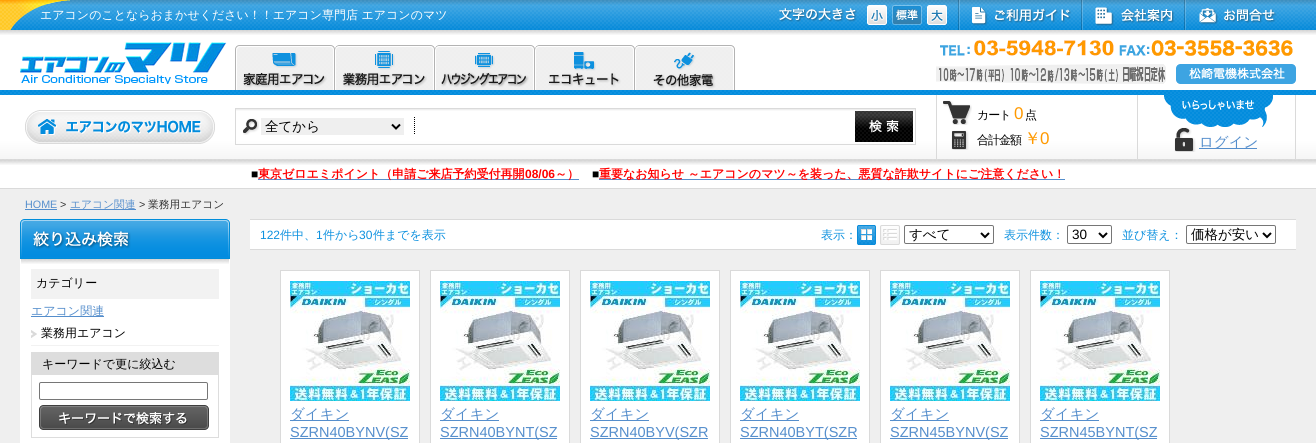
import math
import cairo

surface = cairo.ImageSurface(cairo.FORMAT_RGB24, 1316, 443)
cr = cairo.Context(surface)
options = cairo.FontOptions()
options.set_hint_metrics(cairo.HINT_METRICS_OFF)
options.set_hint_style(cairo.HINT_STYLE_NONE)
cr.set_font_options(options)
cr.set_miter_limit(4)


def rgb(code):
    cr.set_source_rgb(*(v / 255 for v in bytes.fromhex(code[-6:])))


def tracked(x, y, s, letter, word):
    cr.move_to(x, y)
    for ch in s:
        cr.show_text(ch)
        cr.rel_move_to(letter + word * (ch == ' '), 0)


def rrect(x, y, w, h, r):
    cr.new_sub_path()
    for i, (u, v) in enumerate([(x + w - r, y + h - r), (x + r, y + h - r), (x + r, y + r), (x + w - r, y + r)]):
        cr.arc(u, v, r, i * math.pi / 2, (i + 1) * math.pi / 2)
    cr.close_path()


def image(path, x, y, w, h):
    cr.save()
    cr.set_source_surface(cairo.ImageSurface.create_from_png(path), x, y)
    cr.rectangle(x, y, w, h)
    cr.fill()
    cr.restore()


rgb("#efefef")
cr.paint()
image("img/1.png", 0, 0, 1316, 160)
image("img/2.png", 0, 0, 70, 30)
image("img/3.png", 769, 0, 190, 30)
image("img/4.png", 867, 5, 20, 20)
image("img/5.png", 927, 5, 20, 20)
image("img/6.png", 959, 0, 123, 30)
image("img/7.png", 1082, 0, 103, 30)
image("img/8.png", 1185, 0, 111, 30)
image("img/9.png", 20, 42, 207, 42)
image("img/10.png", 235, 45, 100, 45)
image("img/11.png", 335, 45, 100, 45)
image("img/12.png", 435, 45, 100, 45)
image("img/13.png", 535, 45, 100, 45)
image("img/14.png", 635, 45, 100, 45)
image("img/15.png", 940, 40, 174, 16)
image("img/16.png", 1119, 40, 174, 16)
image("img/17.png", 936, 64, 230, 20)
image("img/18.png", 1176, 64, 120, 20)
image("img/19.png", 25, 110, 190, 34)
image("img/20.png", 236, 109, 679, 2)
cr.rectangle(235.5, 108.5, 680, 36)
rgb("#dadada")
cr.set_line_width(1)
cr.stroke()
image("img/21.png", 243, 118, 16, 17)
cr.new_path()
cr.move_to(414.5, 117)
cr.line_to(414.5, 135)
rgb("#000000")
cr.set_dash([1, 1])
cr.stroke()
rgb("#efefef")
cr.rectangle(261, 118, 143, 17)
cr.fill()
cr.new_path()
cr.move_to(392, 124.5)
cr.line_to(396, 128.5)
cr.line_to(400, 124.5)
rgb("#000000")
cr.set_line_width(2)
cr.set_dash([])
cr.stroke()
image("img/22.png", 855, 111, 58, 31)
rgb("#dadada")
cr.rectangle(1137, 95, 1, 65)
cr.fill()
cr.rectangle(936, 95, 1, 65)
cr.fill()
image("img/23.png", 943, 100, 29, 25)
image("img/24.png", 951, 130, 18, 20)
image("img/25.png", 1164, 95, 109, 32)
cr.rectangle(1295, 95, 1, 65)
cr.fill()
image("img/26.png", 1174, 127, 22, 25)
rgb("#558ecc")
cr.rectangle(1199, 148, 58, 1)
cr.fill()
rgb("#ffffff")
cr.rectangle(0, 165, 1316, 23)
cr.fill()
image("img/27.png", 0, 160, 1316, 5)
for x, y, w, h, color in [
    (0, 188, 1316, 1, "#dadada"),
    (258, 179, 321, 1, "#558ecc"),
    (599, 179, 466, 1, "#558ecc"),
    (25, 209, 32, 1, "#558ecc"),
    (70, 209, 66, 1, "#558ecc"),
    (20, 259, 210, 184, "#ffffff"),
]:
    rgb(color)
    cr.rectangle(x, y, w, h)
    cr.fill()
image("img/28.png", 20, 219, 210, 40)
image("img/29.png", 21, 259, 208, 5)
for x, y, w, h, color in [
    (31, 269, 188, 30, "#f2f2f2"),
    (31, 345, 188, 1, "#f2f2f2"),
    (31, 316, 73, 1, "#558ecc"),
]:
    rgb(color)
    cr.rectangle(x, y, w, h)
    cr.fill()
image("img/30.png", 31, 330, 6, 8)
cr.rectangle(31.5, 352.5, 187, 85)
rgb("#dddddd")
cr.set_line_width(1)
cr.stroke()
cr.rectangle(32, 353, 186, 22)
cr.fill()
rrect(39.5, 382.5, 168, 17, 1.5)
rgb("#767676")
cr.stroke()
image("img/31.png", 39, 405, 170, 25)
for x, y, w, h, color in [
    (250, 220, 1046, 29, "#ffffff"),
    (250, 219, 1046, 1, "#dadada"),
    (250, 249, 1046, 1, "#dadada"),
]:
    rgb(color)
    cr.rectangle(x, y, w, h)
    cr.fill()
image("img/32.png", 857, 225, 19, 20)
image("img/33.png", 880, 225, 20, 20)
rrect(904.5, 225.5, 89, 18, 1.5)
rgb("#767676")
cr.stroke()
cr.new_path()
cr.move_to(981, 233)
cr.line_to(985, 237)
cr.line_to(989, 233)
rgb("#000000")
cr.set_line_width(2)
cr.stroke()
rrect(1067.5, 225.5, 44, 18, 1.5)
rgb("#767676")
cr.set_line_width(1)
cr.stroke()
cr.new_path()
cr.move_to(1099, 233)
cr.line_to(1103, 237)
cr.line_to(1107, 233)
rgb("#000000")
cr.set_line_width(2)
cr.stroke()
rrect(1186.5, 225.5, 89, 18, 1.5)
rgb("#767676")
cr.set_line_width(1)
cr.stroke()
cr.new_path()
cr.move_to(1263, 233)
cr.line_to(1267, 237)
cr.line_to(1271, 233)
rgb("#000000")
cr.set_line_width(2)
cr.stroke()
rgb("#ffffff")
cr.rectangle(280.5, 270.5, 139, 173)
cr.fill_preserve()
rgb("#dadada")
cr.set_line_width(1)
cr.stroke()
image("img/34.png", 290, 281, 120, 120)
rgb("#558ecc")
cr.rectangle(290, 420, 59, 1)
cr.fill()
cr.rectangle(290, 438, 118, 1)
cr.fill()
rgb("#ffffff")
cr.rectangle(430.5, 270.5, 139, 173)
cr.fill_preserve()
rgb("#dadada")
cr.stroke()
image("img/34.png", 440, 281, 120, 120)
rgb("#558ecc")
cr.rectangle(440, 420, 59, 1)
cr.fill()
cr.rectangle(440, 438, 117, 1)
cr.fill()
rgb("#ffffff")
cr.rectangle(580.5, 270.5, 139, 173)
cr.fill_preserve()
rgb("#dadada")
cr.stroke()
image("img/34.png", 590, 281, 120, 120)
rgb("#558ecc")
cr.rectangle(590, 420, 59, 1)
cr.fill()
cr.rectangle(590, 438, 118, 1)
cr.fill()
rgb("#ffffff")
cr.rectangle(730.5, 270.5, 139, 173)
cr.fill_preserve()
rgb("#dadada")
cr.stroke()
image("img/34.png", 740, 281, 120, 120)
rgb("#558ecc")
cr.rectangle(740, 420, 59, 1)
cr.fill()
cr.rectangle(740, 438, 117, 1)
cr.fill()
rgb("#ffffff")
cr.rectangle(880.5, 270.5, 139, 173)
cr.fill_preserve()
rgb("#dadada")
cr.stroke()
image("img/34.png", 890, 281, 120, 120)
rgb("#558ecc")
cr.rectangle(890, 420, 59, 1)
cr.fill()
cr.rectangle(890, 438, 118, 1)
cr.fill()
rgb("#ffffff")
cr.rectangle(1030.5, 270.5, 139, 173)
cr.fill_preserve()
rgb("#dadada")
cr.stroke()
image("img/34.png", 1040, 281, 120, 120)
rgb("#558ecc")
cr.rectangle(1040, 420, 59, 1)
cr.fill()
cr.rectangle(1040, 438, 117, 1)
cr.fill()
cr.select_font_face("WenQuanYi Zen Hei Medium")
cr.set_font_size(12)
rgb("#ffffff")
cr.move_to(40, 19)
cr.show_text("エアコンのことならおまかせください！！エアコン専門店 エアコンのマツ")
cr.set_font_size(13.5)
rgb("#000000")
cr.move_to(265, 131)
cr.show_text("全てから")
cr.set_font_size(12)
tracked(977, 119, "カート", -1, 0)
cr.select_font_face("Liberation Sans")
cr.set_font_size(17)
rgb("#ff9900")
tracked(1014, 119, "0", -1, 0)
cr.select_font_face("WenQuanYi Zen Hei Medium")
cr.set_font_size(12)
rgb("#000000")
tracked(1025, 119, "点", -1, 0)
tracked(977, 144, "合計金額", -1, 0)
cr.set_font_size(17)
rgb("#ff9900")
tracked(1024, 144, "￥", -1, 0)
cr.select_font_face("Liberation Sans")
tracked(1040, 144, "0", -1, 0)
cr.select_font_face("WenQuanYi Zen Hei Medium")
cr.set_font_size(14.5)
rgb("#558ecc")
cr.move_to(1199, 147)
cr.show_text("ログイン")
cr.select_font_face("Liberation Sans")
cr.set_font_size(12)
rgb("#000000")
cr.move_to(251, 178)
cr.show_text("■")
cr.select_font_face("WenQuanYi Zen Hei", cairo.FONT_SLANT_NORMAL, cairo.FONT_WEIGHT_BOLD)
rgb("#ff0000")
cr.move_to(258, 178)
cr.show_text("東京ゼロエミポイント（申請ご来店予約受付再開")
cr.select_font_face("Liberation Sans", cairo.FONT_SLANT_NORMAL, cairo.FONT_WEIGHT_BOLD)
cr.move_to(525, 178)
cr.show_text("08/06")
cr.select_font_face("WenQuanYi Zen Hei", cairo.FONT_SLANT_NORMAL, cairo.FONT_WEIGHT_BOLD)
cr.move_to(555, 178)
cr.show_text("～）")
cr.select_font_face("Liberation Sans")
rgb("#000000")
cr.move_to(592, 178)
cr.show_text("■")
cr.select_font_face("WenQuanYi Zen Hei", cairo.FONT_SLANT_NORMAL, cairo.FONT_WEIGHT_BOLD)
rgb("#ff0000")
cr.move_to(599, 178)
cr.show_text("重要なお知らせ ～エアコンのマツ～を装った、悪質な詐欺サイトにご注意ください！")
cr.select_font_face("Liberation Sans")
cr.set_font_size(10.75)
rgb("#558ecc")
cr.move_to(25, 208)
cr.show_text("HOME")
rgb("#333333")
cr.move_to(60, 208)
cr.show_text(">")
cr.select_font_face("WenQuanYi Zen Hei Medium")
rgb("#558ecc")
cr.move_to(70, 208)
cr.show_text("エアコン関連")
cr.select_font_face("Liberation Sans")
rgb("#333333")
cr.move_to(139, 208)
cr.show_text(">")
cr.select_font_face("WenQuanYi Zen Hei Medium")
cr.move_to(148, 208)
cr.show_text("業務用エアコン")
cr.set_font_size(12)
rgb("#000000")
cr.move_to(36, 287)
cr.show_text("カテゴリー")
rgb("#558ecc")
cr.move_to(31, 315)
cr.show_text("エアコン関連")
rgb("#000000")
cr.move_to(41, 337)
cr.show_text("業務用エアコン")
cr.move_to(42, 368)
cr.show_text("キーワードで更に絞込む")
cr.select_font_face("Liberation Sans")
rgb("#0d91df")
cr.move_to(260, 239)
cr.show_text("122")
cr.select_font_face("WenQuanYi Zen Hei Medium")
cr.move_to(280, 239)
cr.show_text("件中、")
cr.select_font_face("Liberation Sans")
cr.move_to(316, 239)
cr.show_text("1")
cr.select_font_face("WenQuanYi Zen Hei Medium")
cr.move_to(323, 239)
cr.show_text("件から")
cr.select_font_face("Liberation Sans")
cr.move_to(359, 239)
cr.show_text("30")
cr.select_font_face("WenQuanYi Zen Hei Medium")
cr.move_to(373, 239)
cr.show_text("件までを表示")
cr.move_to(821, 239)
cr.show_text("表示：")
cr.set_font_size(13.5)
rgb("#000000")
cr.move_to(909, 239)
cr.show_text("すべて")
cr.set_font_size(12)
rgb("#0d91df")
cr.move_to(1004, 239)
cr.show_text("表示件数：")
cr.select_font_face("Liberation Sans")
cr.set_font_size(13.5)
rgb("#000000")
cr.move_to(1072, 239)
cr.show_text("30")
cr.select_font_face("WenQuanYi Zen Hei Medium")
cr.set_font_size(12)
rgb("#0d91df")
cr.move_to(1122, 239)
cr.show_text("並び替え：")
cr.set_font_size(13.5)
rgb("#000000")
cr.move_to(1191, 239)
cr.show_text("価格が安い")
cr.set_font_size(14.5)
rgb("#558ecc")
cr.move_to(290, 419)
cr.show_text("ダイキン")
cr.select_font_face("Liberation Sans")
cr.move_to(290, 437)
cr.show_text("SZRN40BYNV(SZ")
cr.select_font_face("WenQuanYi Zen Hei Medium")
cr.move_to(440, 419)
cr.show_text("ダイキン")
cr.select_font_face("Liberation Sans")
cr.move_to(440, 437)
cr.show_text("SZRN40BYNT(SZ")
cr.select_font_face("WenQuanYi Zen Hei Medium")
cr.move_to(590, 419)
cr.show_text("ダイキン")
cr.select_font_face("Liberation Sans")
cr.move_to(590, 437)
cr.show_text("SZRN40BYV(SZR")
cr.select_font_face("WenQuanYi Zen Hei Medium")
cr.move_to(740, 419)
cr.show_text("ダイキン")
cr.select_font_face("Liberation Sans")
cr.move_to(740, 437)
cr.show_text("SZRN40BYT(SZR")
cr.select_font_face("WenQuanYi Zen Hei Medium")
cr.move_to(890, 419)
cr.show_text("ダイキン")
cr.select_font_face("Liberation Sans")
cr.move_to(890, 437)
cr.show_text("SZRN45BYNV(SZ")
cr.select_font_face("WenQuanYi Zen Hei Medium")
cr.move_to(1040, 419)
cr.show_text("ダイキン")
cr.select_font_face("Liberation Sans")
cr.move_to(1040, 437)
cr.show_text("SZRN45BYNT(SZ")
surface.write_to_png("page.png")
